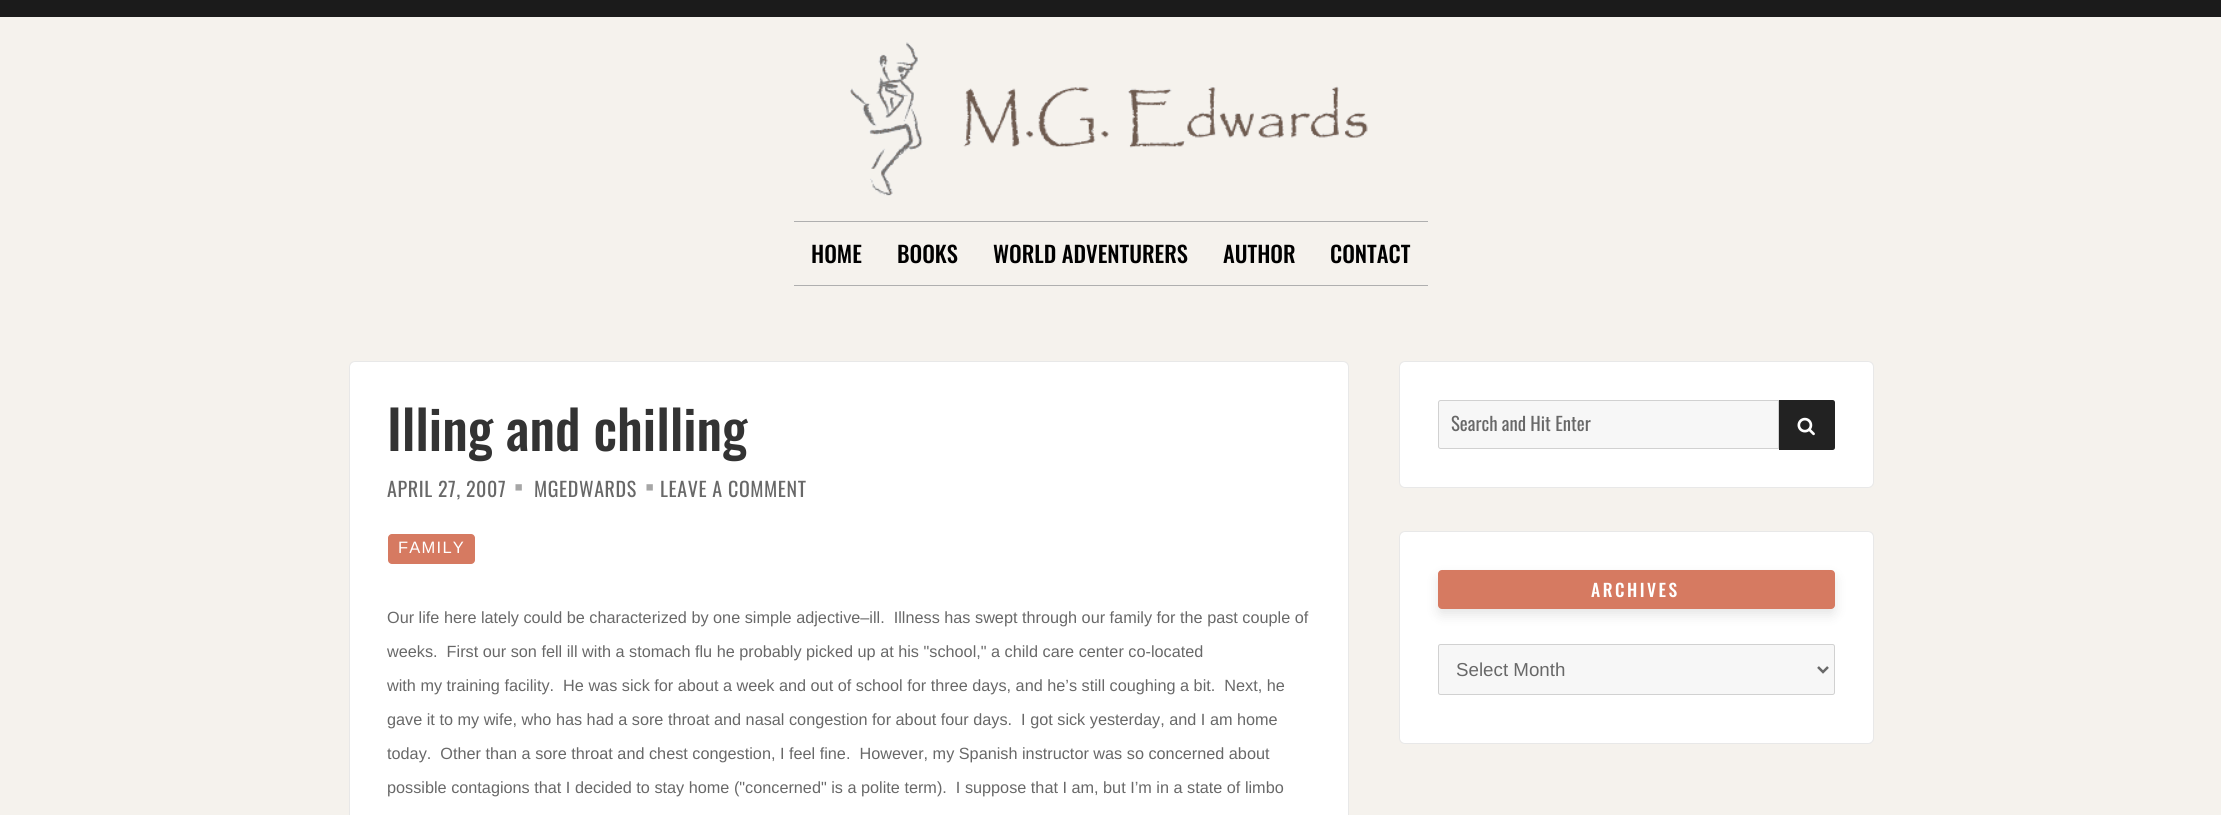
import math
import cairo

surface = cairo.ImageSurface(cairo.FORMAT_RGB24, 2221, 815)
cr = cairo.Context(surface)
options = cairo.FontOptions()
options.set_hint_metrics(cairo.HINT_METRICS_OFF)
options.set_hint_style(cairo.HINT_STYLE_NONE)
cr.set_font_options(options)
cr.set_miter_limit(4)


def rgb(code):
    cr.set_source_rgb(*(v / 255 for v in bytes.fromhex(code[-6:])))


def tracked(x, y, s, letter, word):
    cr.move_to(x, y)
    for ch in s:
        cr.show_text(ch)
        cr.rel_move_to(letter + word * (ch == ' '), 0)


def rrect(x, y, w, h, r):
    cr.new_sub_path()
    for i, (u, v) in enumerate([(x + w - r, y + h - r), (x + r, y + h - r), (x + r, y + r), (x + w - r, y + r)]):
        cr.arc(u, v, r, i * math.pi / 2, (i + 1) * math.pi / 2)
    cr.close_path()


def soft_shadow(x, y, w, h, r, blur, alpha):
    cr.push_group_with_content(cairo.CONTENT_ALPHA)
    cr.set_operator(cairo.OPERATOR_SOURCE)
    for i in range(15, -16, -2):
        e = blur * i / 6
        if min(w, h) + 2 * e > 0:
            cr.set_source_rgba(0, 0, 0, alpha * math.erfc((i - 1) / 8.5) / 2)
            rrect(x - e, y - e, w + 2 * e, h + 2 * e, max(0, min(r + e + blur * .6, min(w, h) / 2 + e)))
            cr.fill()
    cr.mask(cr.pop_group())


def image(path, x, y, w, h):
    cr.save()
    cr.set_source_surface(cairo.ImageSurface.create_from_png(path), x, y)
    cr.rectangle(x, y, w, h)
    cr.fill()
    cr.restore()


rgb("#1b1b1b")
cr.paint()
rgb("#f5f2ed")
cr.rectangle(0, 17, 2221, 798)
cr.fill()
image("img/1.png", 850, 42, 518, 154)
rgb("#afafaf")
cr.rectangle(794, 221, 634, 1)
cr.fill()
cr.rectangle(794, 285, 634, 1)
cr.fill()
rgb("#ffffff")
rrect(349.5, 361.5, 999, 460, 5.5)
cr.fill_preserve()
rgb("#e8e8e8")
cr.set_line_width(1)
cr.stroke()
rgb("#d67a61")
rrect(388, 534, 87, 30, 4)
cr.fill()
rgb("#ffffff")
rrect(1399.5, 361.5, 474, 126, 5.5)
cr.fill_preserve()
rgb("#e8e8e8")
cr.stroke()
rgb("#f7f7f7")
cr.new_path()
cr.move_to(1440.5, 400.5)
cr.line_to(1778.5, 400.5)
cr.line_to(1778.5, 448.5)
cr.line_to(1440.5, 448.5)
cr.curve_to(1439.5, 448.5, 1438.5, 447.5, 1438.5, 446.5)
cr.line_to(1438.5, 402.5)
cr.curve_to(1438.5, 401.5, 1439.5, 400.5, 1440.5, 400.5)
cr.close_path()
cr.fill_preserve()
rgb("#d1d1d1")
cr.stroke()
rgb("#222222")
cr.new_path()
cr.move_to(1779, 400)
cr.line_to(1832.5, 400)
cr.curve_to(1834, 400, 1835, 401, 1835, 402.5)
cr.line_to(1835, 447.5)
cr.curve_to(1835, 449, 1834, 450, 1832.5, 450)
cr.line_to(1779, 450)
cr.close_path()
cr.fill()
image("img/2.png", 1797, 417, 18, 19)
rgb("#ffffff")
rrect(1399.5, 531.5, 474, 212, 5.5)
cr.fill_preserve()
rgb("#e8e8e8")
cr.stroke()
rgb("#000000")
soft_shadow(1438, 576, 397, 39, 4, 6, 0.1)
rgb("#d67a61")
rrect(1438, 570, 397, 39, 4)
cr.fill()
rgb("#f7f7f7")
rrect(1438.5, 644.5, 396, 50, 2)
cr.fill_preserve()
rgb("#d1d1d1")
cr.stroke()
cr.new_path()
cr.move_to(1818, 667)
cr.line_to(1823, 672)
cr.line_to(1828, 667)
rgb("#686868")
cr.set_line_width(2.5)
cr.stroke()
cr.select_font_face("Oswald Medium")
cr.set_font_size(22.5)
rgb("#000000")
for x, y, s in [
    (811, 263, "HOME"),
    (897, 263, "BOOKS"),
    (993, 263, "WORLD ADVENTURERS"),
    (1223, 263, "AUTHOR"),
    (1330, 263, "CONTACT"),
]:
    cr.move_to(x, y)
    cr.show_text(s)
cr.set_font_size(53.75)
rgb("#333333")
cr.move_to(387, 451)
cr.show_text("Illing and chilling")
cr.select_font_face("Oswald")
cr.set_font_size(20)
rgb("#686868")
tracked(387, 497, "APRIL 27, 2007", 0.6, 0)
cr.select_font_face("Oswald", cairo.FONT_SLANT_NORMAL, cairo.FONT_WEIGHT_BOLD)
cr.set_font_size(40)
rgb("#a6a6a6")
tracked(514, 503, "·", 0.6, 0)
cr.select_font_face("Oswald")
cr.set_font_size(20)
rgb("#686868")
tracked(534, 497, "MGEDWARDS", 0.6, 0)
cr.select_font_face("Oswald", cairo.FONT_SLANT_NORMAL, cairo.FONT_WEIGHT_BOLD)
cr.set_font_size(40)
rgb("#a6a6a6")
tracked(645, 503, "·", 0.6, 0)
cr.select_font_face("Oswald")
cr.set_font_size(20)
rgb("#686868")
tracked(660, 497, "LEAVE A COMMENT", 0.6, 0)
cr.select_font_face("Liberation Sans")
cr.set_font_size(16.5)
rgb("#ffffff")
tracked(398, 553, "FAMILY", 1.25, 0)
cr.set_font_size(16.25)
rgb("#686868")
for x, y, s in [
    (387, 623, "Our life here lately could be characterized by one simple adjective–ill.  Illness has swept through our family for the past couple of"),
    (387, 657, "weeks.  First our son fell ill with a stomach flu he probably picked up at his \"school,\" a child care center co-located"),
    (387, 691, "with my training facility.  He was sick for about a week and out of school for three days, and he’s still coughing a bit.  Next, he"),
    (387, 725, "gave it to my wife, who has had a sore throat and nasal congestion for about four days.  I got sick yesterday, and I am home"),
    (387, 759, "today.  Other than a sore throat and chest congestion, I feel fine.  However, my Spanish instructor was so concerned about"),
    (387, 793, "possible contagions that I decided to stay home (\"concerned\" is a polite term).  I suppose that I am, but I’m in a state of limbo"),
]:
    cr.move_to(x, y)
    cr.show_text(s)
cr.select_font_face("Oswald")
cr.set_font_size(18.75)
cr.move_to(1451, 431)
cr.show_text("Search and Hit Enter")
cr.select_font_face("Oswald Medium")
cr.set_font_size(17.5)
rgb("#ffffff")
tracked(1591, 597, "ARCHIVES", 2.5, 0)
cr.select_font_face("Liberation Sans")
cr.set_font_size(18.75)
rgb("#686868")
cr.move_to(1456, 676)
cr.show_text("Select Month")
surface.write_to_png("page.png")
